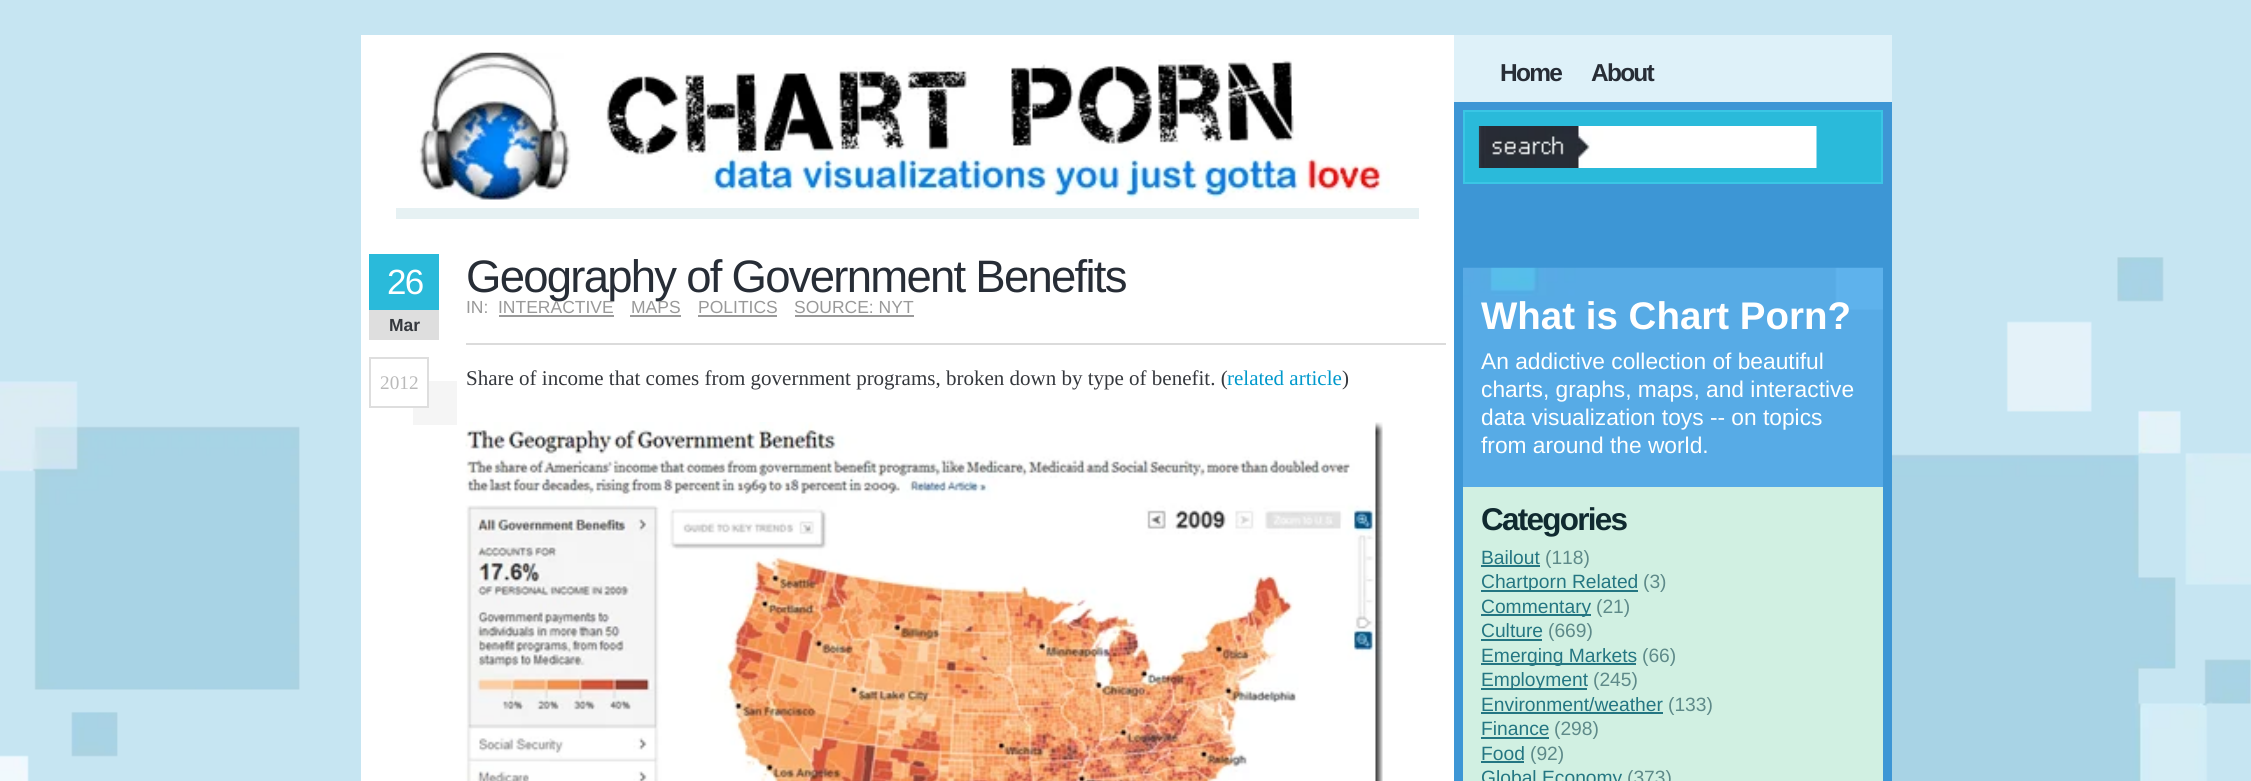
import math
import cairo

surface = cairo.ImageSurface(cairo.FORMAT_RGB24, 2251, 781)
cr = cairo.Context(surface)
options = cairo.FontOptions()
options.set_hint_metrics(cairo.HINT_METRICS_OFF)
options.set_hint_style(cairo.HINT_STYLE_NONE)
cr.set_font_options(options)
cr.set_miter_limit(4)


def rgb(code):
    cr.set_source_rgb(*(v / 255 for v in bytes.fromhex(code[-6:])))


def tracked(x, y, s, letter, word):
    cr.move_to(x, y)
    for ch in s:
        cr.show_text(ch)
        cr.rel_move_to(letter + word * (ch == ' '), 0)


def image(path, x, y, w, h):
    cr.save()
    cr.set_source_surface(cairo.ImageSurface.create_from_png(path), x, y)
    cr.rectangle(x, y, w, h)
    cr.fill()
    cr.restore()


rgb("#c6e5f2")
cr.paint()
image("img/1.png", 0, 257, 2251, 524)
rgb("#ffffff")
cr.rectangle(361, 35, 1093, 746)
cr.fill()
rgb("#e6f1f3")
cr.rectangle(396, 208, 1023, 11)
cr.fill()
image("img/2.png", 417, 52, 973, 148)
for x, y, w, h, color in [
    (413, 381, 44, 44, "#f5f5f5"),
    (369, 254, 70, 56, "#2abada"),
    (369, 310, 70, 30, "#dedede"),
    (413, 381, 14, 25, "#ffffff"),
]:
    rgb(color)
    cr.rectangle(x, y, w, h)
    cr.fill()
cr.rectangle(370, 358, 58, 49)
rgb("#dedede")
cr.stroke()
for x, y, w, h, color in [
    (499, 315, 115, 2, "#999999"),
    (630, 315, 51, 2, "#999999"),
    (698, 315, 79, 2, "#999999"),
    (795, 315, 119, 2, "#999999"),
    (466, 343, 980, 2, "#dbdbdb"),
]:
    rgb(color)
    cr.rectangle(x, y, w, h)
    cr.fill()
image("img/3.png", 465, 422, 918, 359)
rgb("#def1f9")
cr.rectangle(1454, 35, 438, 67)
cr.fill()
rgb("#3d96d5")
cr.rectangle(1454, 102, 438, 679)
cr.fill()
rgb("#2abada")
cr.rectangle(1464, 111, 418, 72)
cr.fill_preserve()
rgb("#3ac6e5")
cr.stroke()
image("img/4.png", 1478, 126, 339, 42)
rgb("#57abe6")
cr.rectangle(1463, 310, 420, 177)
cr.fill()
image("img/5.png", 1463, 267, 420, 43)
for x, y, w, h, color in [
    (1463, 487, 420, 294, "#d1f0e2"),
    (1481, 565, 59, 2, "#247682"),
    (1481, 590, 157, 2, "#247682"),
    (1481, 614, 110, 2, "#247682"),
    (1481, 639, 61, 2, "#247682"),
    (1481, 663, 155, 2, "#247682"),
    (1481, 688, 106, 2, "#247682"),
    (1481, 712, 182, 2, "#247682"),
    (1481, 737, 68, 2, "#247682"),
    (1481, 761, 43, 2, "#247682"),
]:
    rgb(color)
    cr.rectangle(x, y, w, h)
    cr.fill()
cr.select_font_face("Liberation Sans")
cr.set_font_size(35)
rgb("#ffffff")
tracked(387, 294, "26", -1.75, 0)
cr.select_font_face("Liberation Sans", cairo.FONT_SLANT_NORMAL, cairo.FONT_WEIGHT_BOLD)
cr.set_font_size(17.5)
rgb("#35383d")
cr.move_to(389, 331)
cr.show_text("Mar")
cr.select_font_face("Liberation Serif")
cr.set_font_size(19.25)
rgb("#bababa")
cr.move_to(380, 389)
cr.show_text("2012")
cr.select_font_face("Liberation Sans")
cr.set_font_size(45.5)
rgb("#272d36")
tracked(466, 292, "Geography of Government Benefits", -1.75, 0)
cr.set_font_size(17.5)
rgb("#999999")
for x, y, s in [
    (466, 313, "IN:"),
    (498, 313, "INTERACTIVE"),
    (631, 313, "MAPS"),
    (698, 313, "POLITICS"),
    (794, 313, "SOURCE: NYT"),
]:
    cr.move_to(x, y)
    cr.show_text(s)
cr.select_font_face("Liberation Serif")
cr.set_font_size(21)
rgb("#35383d")
cr.move_to(466, 385)
cr.show_text("Share of income that comes from government programs, broken down by type of benefit. (")
rgb("#0099cc")
cr.move_to(1227, 385)
cr.show_text("related article")
rgb("#35383d")
cr.move_to(1342, 385)
cr.show_text(")")
cr.select_font_face("Liberation Sans", cairo.FONT_SLANT_NORMAL, cairo.FONT_WEIGHT_BOLD)
cr.set_font_size(24.5)
rgb("#272d36")
tracked(1500, 81, "Home", -1.75, 0)
tracked(1591, 81, "About", -1.75, 0)
cr.set_font_size(38.5)
rgb("#ffffff")
cr.move_to(1481, 329)
cr.show_text("What is Chart Porn?")
cr.select_font_face("Liberation Sans")
cr.set_font_size(22.75)
for x, y, s in [
    (1481, 369, "An addictive collection of beautiful"),
    (1481, 397, "charts, graphs, maps, and interactive"),
    (1481, 425, "data visualization toys -- on topics"),
    (1481, 453, "from around the world."),
]:
    cr.move_to(x, y)
    cr.show_text(s)
cr.select_font_face("Liberation Sans", cairo.FONT_SLANT_NORMAL, cairo.FONT_WEIGHT_BOLD)
cr.set_font_size(31.5)
rgb("#102a30")
tracked(1481, 530, "Categories", -1.75, 0)
cr.select_font_face("Liberation Sans")
cr.set_font_size(19.25)
rgb("#247682")
cr.move_to(1481, 564)
cr.show_text("Bailout")
rgb("#5e8a89")
cr.move_to(1545, 564)
cr.show_text("(118)")
rgb("#247682")
cr.move_to(1481, 588)
cr.show_text("Chartporn Related")
rgb("#5e8a89")
cr.move_to(1643, 588)
cr.show_text("(3)")
rgb("#247682")
cr.move_to(1481, 613)
cr.show_text("Commentary")
rgb("#5e8a89")
cr.move_to(1596, 613)
cr.show_text("(21)")
rgb("#247682")
cr.move_to(1481, 637)
cr.show_text("Culture")
rgb("#5e8a89")
cr.move_to(1548, 637)
cr.show_text("(669)")
rgb("#247682")
cr.move_to(1481, 662)
cr.show_text("Emerging Markets")
rgb("#5e8a89")
cr.move_to(1642, 662)
cr.show_text("(66)")
rgb("#247682")
cr.move_to(1481, 686)
cr.show_text("Employment")
rgb("#5e8a89")
cr.move_to(1593, 686)
cr.show_text("(245)")
rgb("#247682")
cr.move_to(1481, 711)
cr.show_text("Environment/weather")
rgb("#5e8a89")
cr.move_to(1668, 711)
cr.show_text("(133)")
rgb("#247682")
cr.move_to(1481, 735)
cr.show_text("Finance")
rgb("#5e8a89")
cr.move_to(1554, 735)
cr.show_text("(298)")
rgb("#247682")
cr.move_to(1481, 760)
cr.show_text("Food")
rgb("#5e8a89")
cr.move_to(1530, 760)
cr.show_text("(92)")
rgb("#247682")
cr.move_to(1481, 784)
cr.show_text("Global Economy")
rgb("#5e8a89")
cr.move_to(1627, 784)
cr.show_text("(373)")
surface.write_to_png("page.png")
